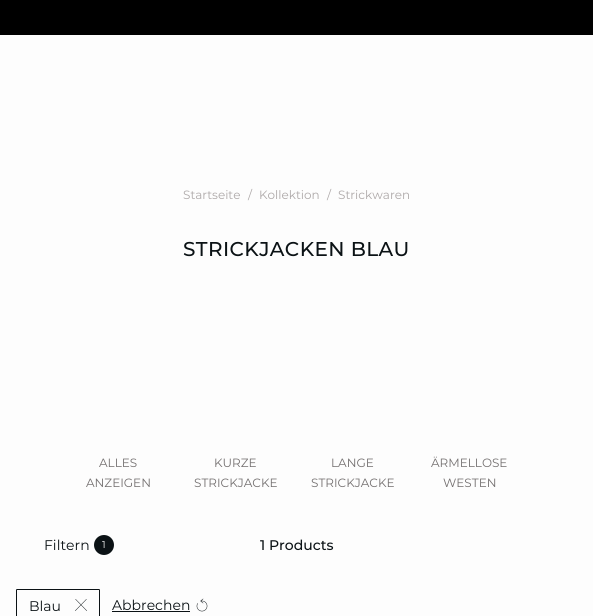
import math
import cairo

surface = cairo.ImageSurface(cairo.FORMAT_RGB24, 593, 616)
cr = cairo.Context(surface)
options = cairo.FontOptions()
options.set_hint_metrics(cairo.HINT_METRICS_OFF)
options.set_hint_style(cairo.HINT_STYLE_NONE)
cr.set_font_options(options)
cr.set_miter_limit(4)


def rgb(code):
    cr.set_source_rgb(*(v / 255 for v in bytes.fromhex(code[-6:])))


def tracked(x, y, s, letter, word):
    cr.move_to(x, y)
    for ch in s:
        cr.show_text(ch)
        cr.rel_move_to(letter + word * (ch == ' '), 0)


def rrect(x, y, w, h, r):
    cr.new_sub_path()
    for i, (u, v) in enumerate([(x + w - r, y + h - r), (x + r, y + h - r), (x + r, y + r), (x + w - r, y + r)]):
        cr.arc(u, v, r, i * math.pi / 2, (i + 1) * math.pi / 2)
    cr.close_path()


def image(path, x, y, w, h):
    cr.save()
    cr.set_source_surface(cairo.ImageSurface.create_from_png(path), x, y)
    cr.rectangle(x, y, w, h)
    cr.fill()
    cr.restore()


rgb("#fdfdfd")
cr.paint()
rgb("#000000")
cr.rectangle(0, 0, 593, 35)
cr.fill()
rgb("#0b1215")
cr.arc(104, 545, 10, 0, 2 * math.pi)
cr.fill()
rrect(16.5, 589.5, 83, 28, 0.5)
cr.set_line_width(1)
cr.stroke()
image("img/1.png", 75, 599, 12, 12)
cr.rectangle(112, 611, 78, 1)
cr.fill()
image("img/2.png", 196, 598, 12, 14)
cr.select_font_face("Montserrat")
cr.set_font_size(12)
rgb("#ada8a8")
for x, y, s in [
    (183, 199, "Startseite"),
    (248, 199, "/"),
    (259, 199, "Kollektion"),
    (327, 199, "/"),
    (338, 199, "Strickwaren"),
]:
    cr.move_to(x, y)
    cr.show_text(s)
cr.select_font_face("Montserrat Medium")
cr.set_font_size(20)
rgb("#0b1215")
tracked(183, 256, "STRICKJACKEN BLAU", 0.4, 0)
cr.select_font_face("Montserrat")
cr.set_font_size(12)
rgb("#726e6e")
for x, y, s in [
    (99, 467, "ALLES"),
    (86, 487, "ANZEIGEN"),
    (214, 467, "KURZE"),
    (194, 487, "STRICKJACKE"),
    (331, 467, "LANGE"),
    (311, 487, "STRICKJACKE"),
    (431, 467, "ÄRMELLOSE"),
    (443, 487, "WESTEN"),
]:
    cr.move_to(x, y)
    cr.show_text(s)
cr.set_font_size(14)
rgb("#0b1215")
cr.move_to(44, 550)
cr.show_text("Filtern")
cr.set_font_size(10)
rgb("#fdfdfd")
cr.move_to(102, 548)
cr.show_text("1")
cr.select_font_face("Montserrat Medium")
cr.set_font_size(14)
rgb("#0b1215")
cr.move_to(260, 550)
cr.show_text("1 Products")
cr.select_font_face("Montserrat")
cr.move_to(29, 611)
cr.show_text("Blau")
cr.move_to(112, 610)
cr.show_text("Abbrechen")
surface.write_to_png("page.png")
